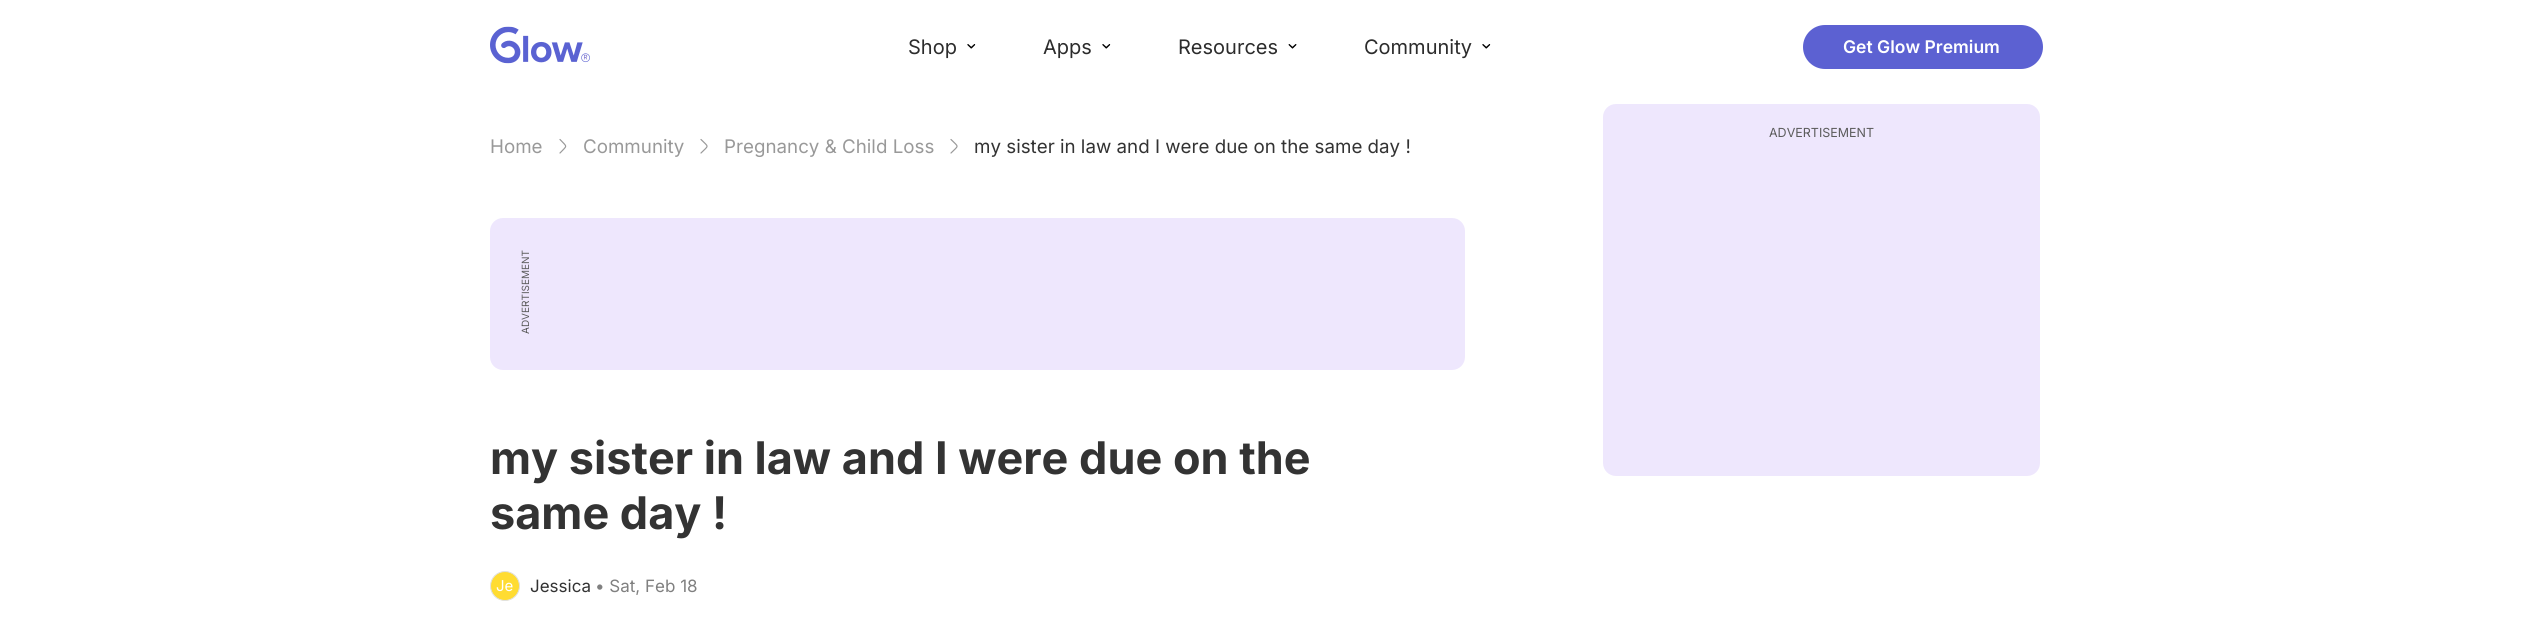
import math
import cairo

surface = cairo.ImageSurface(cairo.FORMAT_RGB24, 2529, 642)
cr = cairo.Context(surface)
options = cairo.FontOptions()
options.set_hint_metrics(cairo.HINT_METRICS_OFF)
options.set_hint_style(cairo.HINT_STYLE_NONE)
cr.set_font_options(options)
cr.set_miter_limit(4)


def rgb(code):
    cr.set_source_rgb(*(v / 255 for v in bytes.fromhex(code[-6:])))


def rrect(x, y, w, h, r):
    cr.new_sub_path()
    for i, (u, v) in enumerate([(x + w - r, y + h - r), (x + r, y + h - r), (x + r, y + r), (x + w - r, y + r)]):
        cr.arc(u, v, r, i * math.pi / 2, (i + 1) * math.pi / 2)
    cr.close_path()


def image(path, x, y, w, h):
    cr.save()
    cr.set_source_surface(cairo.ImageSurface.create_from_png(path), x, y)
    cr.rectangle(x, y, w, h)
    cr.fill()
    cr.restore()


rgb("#ffffff")
cr.paint()
image("img/1.png", 490, 26, 100, 38)
image("img/2.png", 967, 44, 9, 5)
image("img/2.png", 1102, 44, 9, 5)
image("img/3.png", 1288, 44, 9, 5)
image("img/2.png", 1482, 44, 9, 5)
rgb("#5c61d2")
rrect(1803, 25, 240, 44, 22)
cr.fill()
rgb("#eee7fd")
rrect(1603, 104, 437, 372, 13)
cr.fill()
cr.new_path()
cr.move_to(560, 153)
cr.curve_to(567.5, 145, 567.5, 147.5, 560, 139.5)
rgb("#999999")
cr.set_line_width(1.2)
cr.set_line_cap(cairo.LINE_CAP_ROUND)
cr.set_line_join(cairo.LINE_JOIN_ROUND)
cr.stroke()
cr.new_path()
cr.move_to(701, 153)
cr.curve_to(709, 145, 709, 147.5, 701, 139.5)
cr.stroke()
cr.new_path()
cr.move_to(951, 153)
cr.curve_to(959, 145, 959, 147.5, 951, 139.5)
cr.stroke()
rgb("#eee7fd")
rrect(490, 218, 975, 152, 13)
cr.fill()
rgb("#ffdc32")
cr.arc(505, 586, 14.5, 0, 2 * math.pi)
cr.fill_preserve()
rgb("#e0e0e0")
cr.set_line_width(1)
cr.set_line_cap(cairo.LINE_CAP_BUTT)
cr.set_line_join(cairo.LINE_JOIN_MITER)
cr.stroke()
cr.select_font_face("Inter")
cr.set_font_size(20)
rgb("#2c2c2c")
for x, y, s in [
    (908, 54, "Shop"),
    (1043, 54, "Apps"),
    (1178, 54, "Resources"),
    (1364, 54, "Community"),
]:
    cr.move_to(x, y)
    cr.show_text(s)
cr.select_font_face("Inter SemiBold")
cr.set_font_size(17.5)
rgb("#ffffff")
cr.move_to(1843, 53)
cr.show_text("Get Glow Premium")
cr.select_font_face("Inter")
cr.set_font_size(12.5)
rgb("#5c5c5c")
cr.move_to(1769, 137)
cr.show_text("ADVERTISEMENT")
cr.set_font_size(18.75)
rgb("#999999")
for x, y, s in [
    (490, 153, "Home"),
    (583, 153, "Community"),
    (724, 153, "Pregnancy & Child Loss"),
]:
    cr.move_to(x, y)
    cr.show_text(s)
rgb("#333333")
cr.move_to(974, 153)
cr.show_text("my sister in law and I were due on the same day !")
cr.set_font_size(10)
rgb("#5c5c5c")
cr.save()
cr.translate(529, 334)
cr.rotate(-90 * math.pi / 180)
cr.move_to(0, 0)
cr.show_text("ADVERTISEMENT")
cr.restore()
cr.select_font_face("Inter", cairo.FONT_SLANT_NORMAL, cairo.FONT_WEIGHT_BOLD)
cr.set_font_size(45)
rgb("#333333")
cr.move_to(490, 474)
cr.show_text("my sister in law and I were due on the")
cr.move_to(490, 529)
cr.show_text("same day !")
cr.select_font_face("Inter")
cr.set_font_size(15)
rgb("#ffffff")
cr.move_to(496, 591)
cr.show_text("Je")
cr.set_font_size(17)
rgb("#333333")
cr.move_to(530, 592)
cr.show_text("Jessica")
rgb("#808080")
cr.move_to(595, 592)
cr.show_text("• Sat, Feb 18")
surface.write_to_png("page.png")
